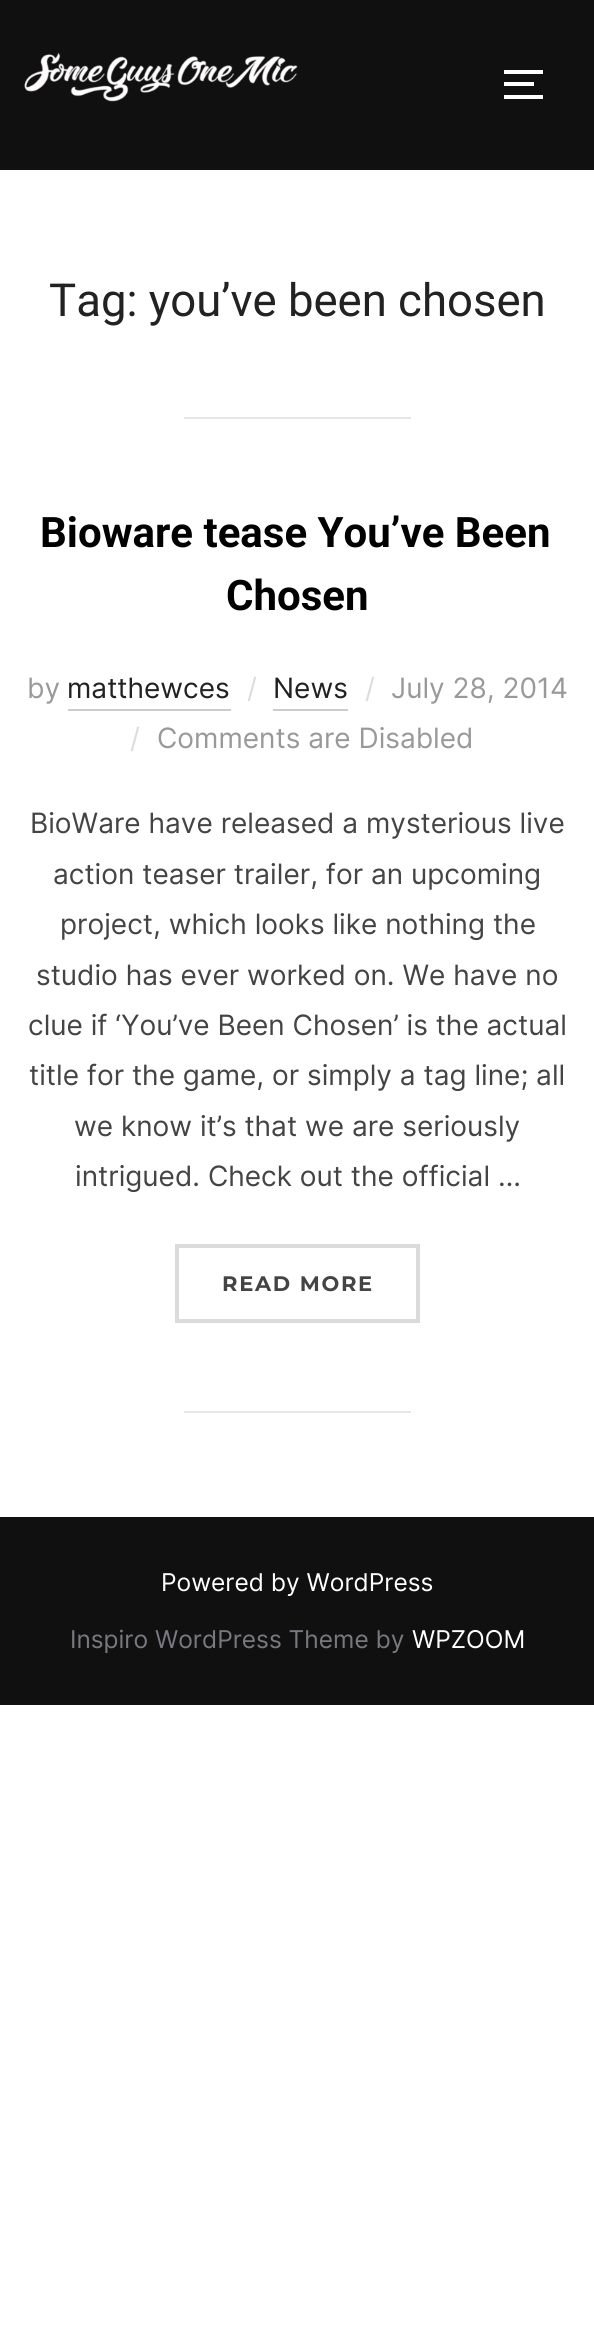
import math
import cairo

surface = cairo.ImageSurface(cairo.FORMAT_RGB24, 594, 2349)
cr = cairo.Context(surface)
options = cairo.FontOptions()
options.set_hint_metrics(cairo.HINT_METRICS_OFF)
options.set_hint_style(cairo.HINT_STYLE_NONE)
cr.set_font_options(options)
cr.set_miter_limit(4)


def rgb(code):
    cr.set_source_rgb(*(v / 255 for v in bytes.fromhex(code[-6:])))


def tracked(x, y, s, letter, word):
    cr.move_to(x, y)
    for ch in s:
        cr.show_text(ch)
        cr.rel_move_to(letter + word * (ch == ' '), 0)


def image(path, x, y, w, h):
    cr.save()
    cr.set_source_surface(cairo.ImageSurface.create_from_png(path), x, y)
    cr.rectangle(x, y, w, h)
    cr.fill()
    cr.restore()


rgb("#ffffff")
cr.paint()
rgb("#101010")
cr.rectangle(0, 0, 594, 170)
cr.fill()
image("img/1.png", 24, 52, 274, 50)
for x, y, w, h, color in [
    (504, 70, 39, 4, "#ffffff"),
    (504, 82, 30, 4, "#ffffff"),
    (504, 95, 39, 4, "#ffffff"),
    (184, 417, 227, 2, "#e6e6e6"),
    (68, 709, 163, 2, "#cccccc"),
    (273, 709, 75, 2, "#cccccc"),
]:
    rgb(color)
    cr.rectangle(x, y, w, h)
    cr.fill()
cr.rectangle(177, 1246, 241, 75)
rgb("#dbdbdb")
cr.set_line_width(4)
cr.stroke()
rgb("#e6e6e6")
cr.rectangle(184, 1411, 227, 2)
cr.fill()
rgb("#101010")
cr.rectangle(0, 1517, 594, 188)
cr.fill()
cr.select_font_face("Roboto")
cr.set_font_size(45.5)
rgb("#222222")
cr.move_to(49, 316)
cr.show_text("Tag: you’ve been chosen")
cr.select_font_face("Roboto", cairo.FONT_SLANT_NORMAL, cairo.FONT_WEIGHT_BOLD)
cr.set_font_size(42)
rgb("#000000")
cr.move_to(40, 547)
cr.show_text("Bioware tease You’ve Been")
cr.move_to(226, 610)
cr.show_text("Chosen")
cr.select_font_face("Inter")
cr.set_font_size(28)
rgb("#999999")
cr.move_to(27, 698)
cr.show_text("by")
rgb("#222222")
cr.move_to(67, 698)
cr.show_text("matthewces")
rgb("#dbdddd")
cr.move_to(247, 698)
cr.show_text("/")
rgb("#222222")
cr.move_to(273, 698)
cr.show_text("News")
rgb("#dbdddd")
cr.move_to(365, 698)
cr.show_text("/")
rgb("#999999")
cr.move_to(391, 698)
cr.show_text("July 28, 2014")
rgb("#dbdddd")
cr.move_to(130, 748)
cr.show_text("/")
rgb("#999999")
cr.move_to(157, 748)
cr.show_text("Comments are Disabled")
rgb("#444444")
for x, y, s in [
    (30, 833, "BioWare have released a mysterious live"),
    (53, 884, "action teaser trailer, for an upcoming"),
    (60, 934, "project, which looks like nothing the"),
    (36, 985, "studio has ever worked on. We have no"),
    (28, 1035, "clue if ‘You’ve Been Chosen’ is the actual"),
    (29, 1085, "title for the game, or simply a tag line; all"),
    (74, 1136, "we know it’s that we are seriously"),
    (75, 1186, "intrigued. Check out the official …"),
]:
    cr.move_to(x, y)
    cr.show_text(s)
cr.select_font_face("Montserrat", cairo.FONT_SLANT_NORMAL, cairo.FONT_WEIGHT_BOLD)
cr.set_font_size(21)
tracked(222, 1291, "READ MORE", 1.75, 0)
cr.select_font_face("Inter")
cr.set_font_size(24.5)
rgb("#ffffff")
cr.move_to(161, 1591)
cr.show_text("Powered by WordPress")
rgb("#78787f")
cr.move_to(70, 1648)
cr.show_text("Inspiro WordPress Theme by")
rgb("#ffffff")
cr.move_to(412, 1648)
cr.show_text("WPZOOM")
surface.write_to_png("page.png")
